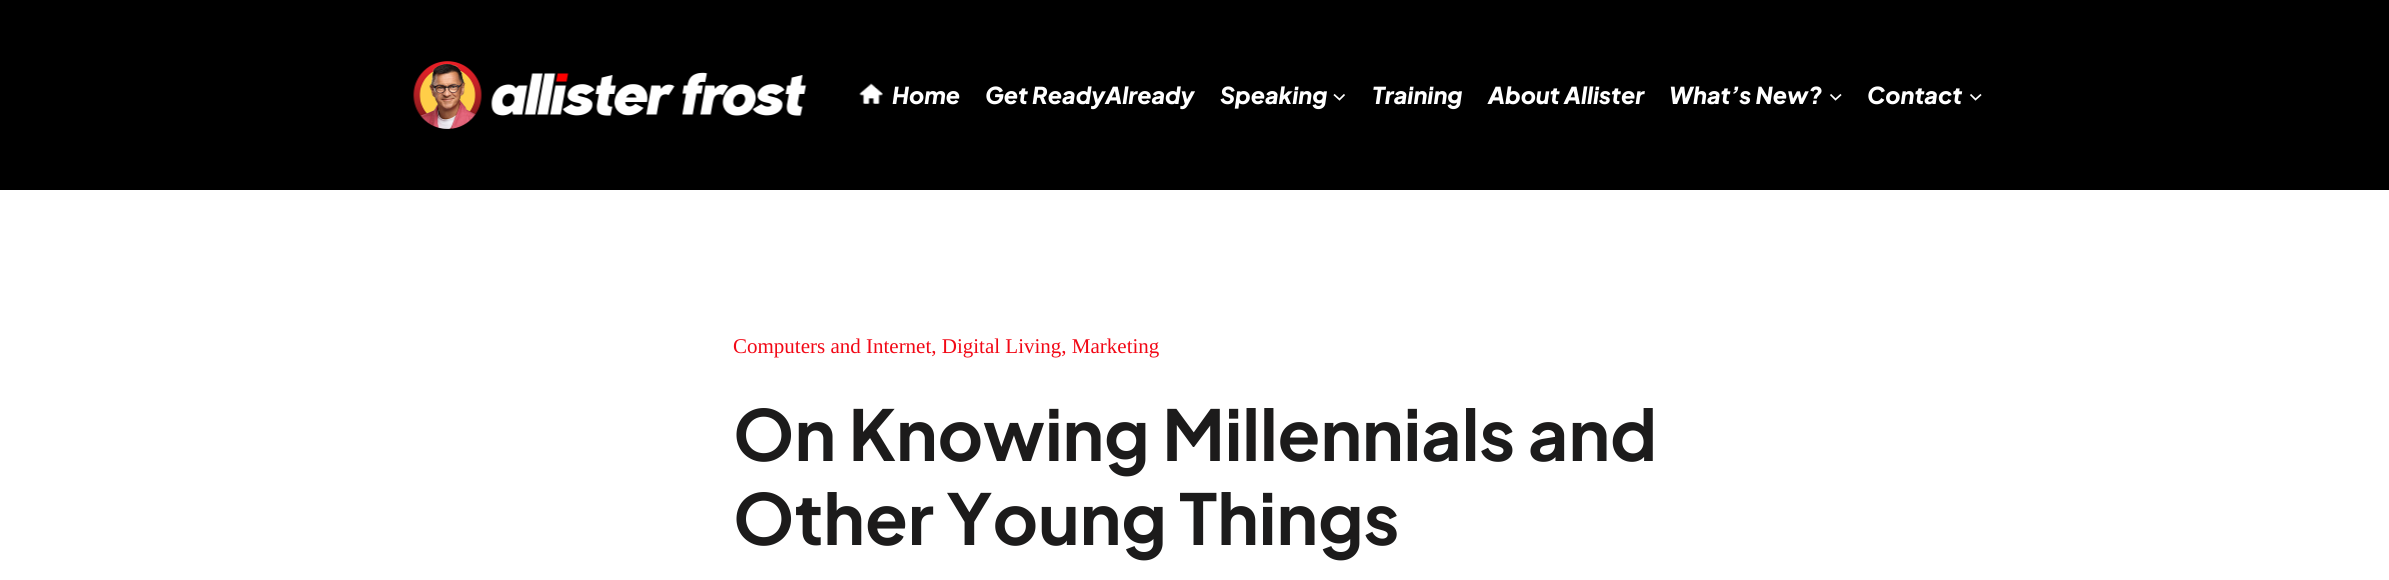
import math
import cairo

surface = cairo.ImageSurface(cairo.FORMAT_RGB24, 2389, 580)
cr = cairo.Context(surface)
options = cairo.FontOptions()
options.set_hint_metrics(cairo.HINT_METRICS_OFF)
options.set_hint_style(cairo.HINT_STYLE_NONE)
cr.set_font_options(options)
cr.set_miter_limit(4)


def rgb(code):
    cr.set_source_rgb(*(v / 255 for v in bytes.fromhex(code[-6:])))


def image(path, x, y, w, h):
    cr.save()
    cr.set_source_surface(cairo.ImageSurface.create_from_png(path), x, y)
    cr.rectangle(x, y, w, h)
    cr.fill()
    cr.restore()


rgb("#ffffff")
cr.paint()
rgb("#000000")
cr.rectangle(0, 0, 2389, 190)
cr.fill()
image("img/1.png", 413, 61, 394, 68)
image("img/2.png", 859, 83, 24, 21)
cr.new_path()
cr.move_to(1334, 94.5)
cr.line_to(1339.5, 99.5)
cr.line_to(1344.5, 94.5)
rgb("#ffffff")
cr.set_line_width(1.7)
cr.stroke()
cr.new_path()
cr.move_to(1830.5, 94.5)
cr.line_to(1835.5, 99.5)
cr.line_to(1841, 94.5)
cr.stroke()
cr.new_path()
cr.move_to(1970.5, 94.5)
cr.line_to(1975.5, 99.5)
cr.line_to(1981, 94.5)
cr.stroke()
cr.select_font_face("Plus Jakarta Sans ExtraBold", cairo.FONT_SLANT_ITALIC)
cr.set_font_size(23.25)
for x, y, s in [
    (892, 104, "Home"),
    (985, 104, "Get ReadyAlready"),
    (1220, 104, "Speaking"),
    (1372, 104, "Training"),
    (1488, 104, "About Allister"),
    (1669, 104, "What’s New?"),
    (1867, 104, "Contact"),
]:
    cr.move_to(x, y)
    cr.show_text(s)
cr.select_font_face("Liberation Serif")
cr.set_font_size(21)
rgb("#f20816")
cr.move_to(733, 353)
cr.show_text("Computers and Internet, Digital Living, Marketing")
cr.select_font_face("Plus Jakarta Sans", cairo.FONT_SLANT_NORMAL, cairo.FONT_WEIGHT_BOLD)
cr.set_font_size(70)
rgb("#1c1b1b")
cr.move_to(733, 461)
cr.show_text("On Knowing Millennials and")
cr.move_to(733, 545)
cr.show_text("Other Young Things")
surface.write_to_png("page.png")
